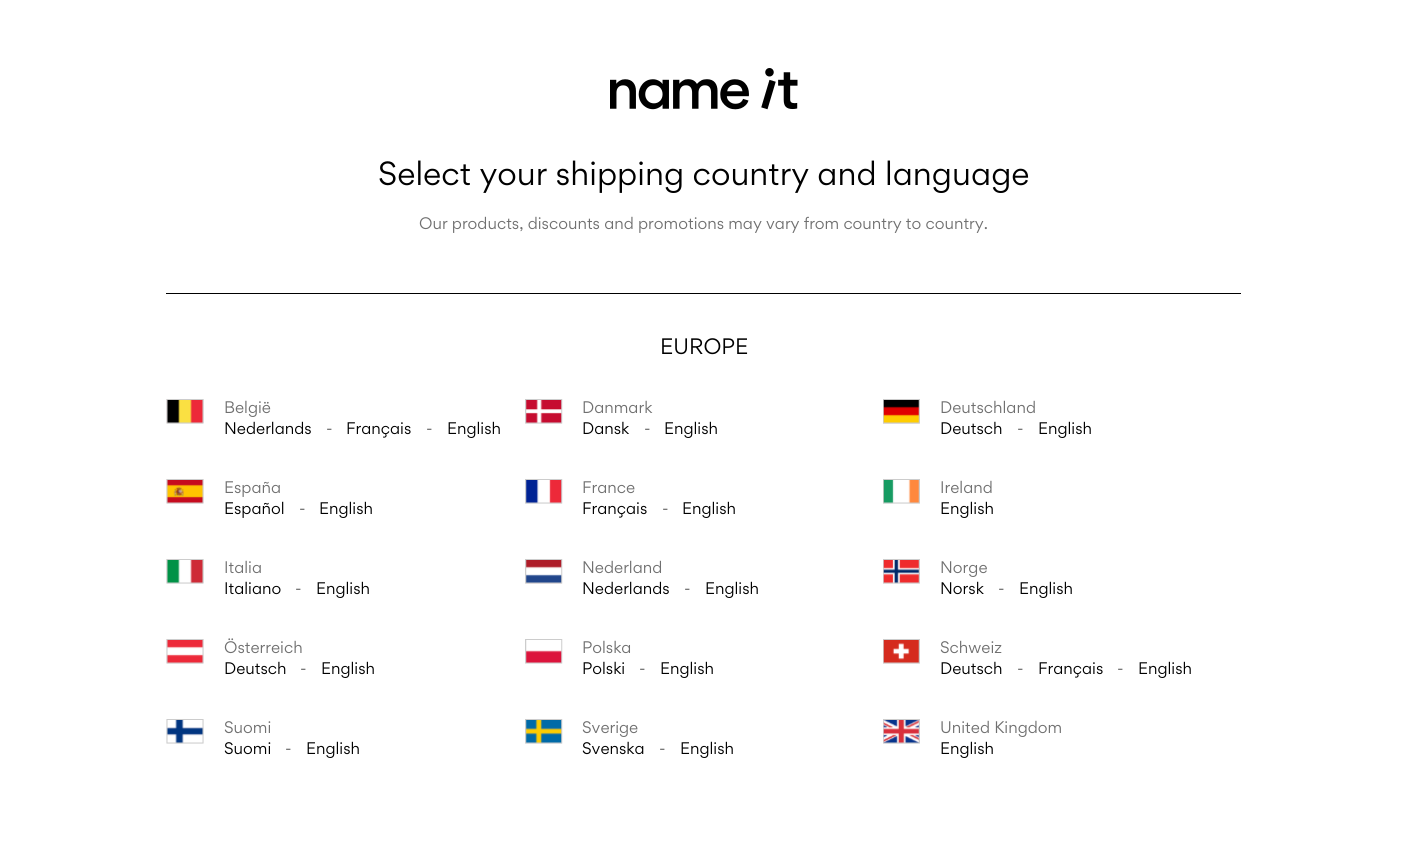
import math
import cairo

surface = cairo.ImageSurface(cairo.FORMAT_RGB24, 1407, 847)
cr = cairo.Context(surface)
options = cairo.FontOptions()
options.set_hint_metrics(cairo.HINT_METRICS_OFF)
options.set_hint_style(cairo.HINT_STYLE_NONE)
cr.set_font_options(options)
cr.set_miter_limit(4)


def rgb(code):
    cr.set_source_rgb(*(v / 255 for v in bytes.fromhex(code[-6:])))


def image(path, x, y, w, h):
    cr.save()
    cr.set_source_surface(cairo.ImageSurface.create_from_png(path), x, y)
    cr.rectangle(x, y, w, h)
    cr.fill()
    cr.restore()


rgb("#ffffff")
cr.paint()
image("img/1.png", 610, 68, 188, 42)
rgb("#000000")
cr.rectangle(166, 293, 1075, 1)
cr.fill()
image("img/2.png", 166, 399, 38, 25)
image("img/3.png", 525, 399, 38, 25)
image("img/4.png", 883, 399, 37, 25)
image("img/5.png", 166, 479, 38, 25)
image("img/6.png", 525, 479, 38, 25)
image("img/7.png", 883, 479, 37, 25)
image("img/8.png", 166, 559, 38, 25)
image("img/9.png", 525, 559, 38, 25)
image("img/10.png", 883, 559, 37, 25)
image("img/11.png", 166, 639, 38, 25)
image("img/12.png", 525, 639, 38, 25)
image("img/13.png", 883, 639, 37, 25)
image("img/14.png", 166, 719, 38, 25)
image("img/15.png", 525, 719, 38, 25)
image("img/16.png", 883, 719, 37, 25)
cr.select_font_face("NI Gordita")
cr.set_font_size(30)
cr.move_to(378, 185)
cr.show_text("Select your shipping country and language")
cr.set_font_size(15)
rgb("#707070")
cr.move_to(419, 229)
cr.show_text("Our products, discounts and promotions may vary from country to country.")
cr.set_font_size(20)
rgb("#000000")
cr.move_to(660, 354)
cr.show_text("EUROPE")
cr.set_font_size(15)
rgb("#707070")
cr.move_to(224, 413)
cr.show_text("België")
rgb("#000000")
cr.move_to(224, 434)
cr.show_text("Nederlands")
rgb("#707070")
cr.move_to(326, 434)
cr.show_text("-")
rgb("#000000")
cr.move_to(346, 434)
cr.show_text("Français")
rgb("#707070")
cr.move_to(426, 434)
cr.show_text("-")
rgb("#000000")
cr.move_to(447, 434)
cr.show_text("English")
rgb("#707070")
cr.move_to(582, 413)
cr.show_text("Danmark")
rgb("#000000")
cr.move_to(582, 434)
cr.show_text("Dansk")
rgb("#707070")
cr.move_to(644, 434)
cr.show_text("-")
rgb("#000000")
cr.move_to(664, 434)
cr.show_text("English")
rgb("#707070")
cr.move_to(940, 413)
cr.show_text("Deutschland")
rgb("#000000")
cr.move_to(940, 434)
cr.show_text("Deutsch")
rgb("#707070")
cr.move_to(1017, 434)
cr.show_text("-")
rgb("#000000")
cr.move_to(1038, 434)
cr.show_text("English")
rgb("#707070")
cr.move_to(224, 493)
cr.show_text("España")
rgb("#000000")
cr.move_to(224, 514)
cr.show_text("Español")
rgb("#707070")
cr.move_to(299, 514)
cr.show_text("-")
rgb("#000000")
cr.move_to(319, 514)
cr.show_text("English")
rgb("#707070")
cr.move_to(582, 493)
cr.show_text("France")
rgb("#000000")
cr.move_to(582, 514)
cr.show_text("Français")
rgb("#707070")
cr.move_to(662, 514)
cr.show_text("-")
rgb("#000000")
cr.move_to(682, 514)
cr.show_text("English")
rgb("#707070")
cr.move_to(940, 493)
cr.show_text("Ireland")
rgb("#000000")
cr.move_to(940, 514)
cr.show_text("English")
rgb("#707070")
cr.move_to(224, 573)
cr.show_text("Italia")
rgb("#000000")
cr.move_to(224, 594)
cr.show_text("Italiano")
rgb("#707070")
cr.move_to(295, 594)
cr.show_text("-")
rgb("#000000")
cr.move_to(316, 594)
cr.show_text("English")
rgb("#707070")
cr.move_to(582, 573)
cr.show_text("Nederland")
rgb("#000000")
cr.move_to(582, 594)
cr.show_text("Nederlands")
rgb("#707070")
cr.move_to(684, 594)
cr.show_text("-")
rgb("#000000")
cr.move_to(705, 594)
cr.show_text("English")
rgb("#707070")
cr.move_to(940, 573)
cr.show_text("Norge")
rgb("#000000")
cr.move_to(940, 594)
cr.show_text("Norsk")
rgb("#707070")
cr.move_to(998, 594)
cr.show_text("-")
rgb("#000000")
cr.move_to(1019, 594)
cr.show_text("English")
rgb("#707070")
cr.move_to(224, 653)
cr.show_text("Österreich")
rgb("#000000")
cr.move_to(224, 674)
cr.show_text("Deutsch")
rgb("#707070")
cr.move_to(300, 674)
cr.show_text("-")
rgb("#000000")
cr.move_to(321, 674)
cr.show_text("English")
rgb("#707070")
cr.move_to(582, 653)
cr.show_text("Polska")
rgb("#000000")
cr.move_to(582, 674)
cr.show_text("Polski")
rgb("#707070")
cr.move_to(639, 674)
cr.show_text("-")
rgb("#000000")
cr.move_to(660, 674)
cr.show_text("English")
rgb("#707070")
cr.move_to(940, 653)
cr.show_text("Schweiz")
rgb("#000000")
cr.move_to(940, 674)
cr.show_text("Deutsch")
rgb("#707070")
cr.move_to(1017, 674)
cr.show_text("-")
rgb("#000000")
cr.move_to(1038, 674)
cr.show_text("Français")
rgb("#707070")
cr.move_to(1117, 674)
cr.show_text("-")
rgb("#000000")
cr.move_to(1138, 674)
cr.show_text("English")
rgb("#707070")
cr.move_to(224, 733)
cr.show_text("Suomi")
rgb("#000000")
cr.move_to(224, 754)
cr.show_text("Suomi")
rgb("#707070")
cr.move_to(285, 754)
cr.show_text("-")
rgb("#000000")
cr.move_to(306, 754)
cr.show_text("English")
rgb("#707070")
cr.move_to(582, 733)
cr.show_text("Sverige")
rgb("#000000")
cr.move_to(582, 754)
cr.show_text("Svenska")
rgb("#707070")
cr.move_to(659, 754)
cr.show_text("-")
rgb("#000000")
cr.move_to(680, 754)
cr.show_text("English")
rgb("#707070")
cr.move_to(940, 733)
cr.show_text("United Kingdom")
rgb("#000000")
cr.move_to(940, 754)
cr.show_text("English")
surface.write_to_png("page.png")
